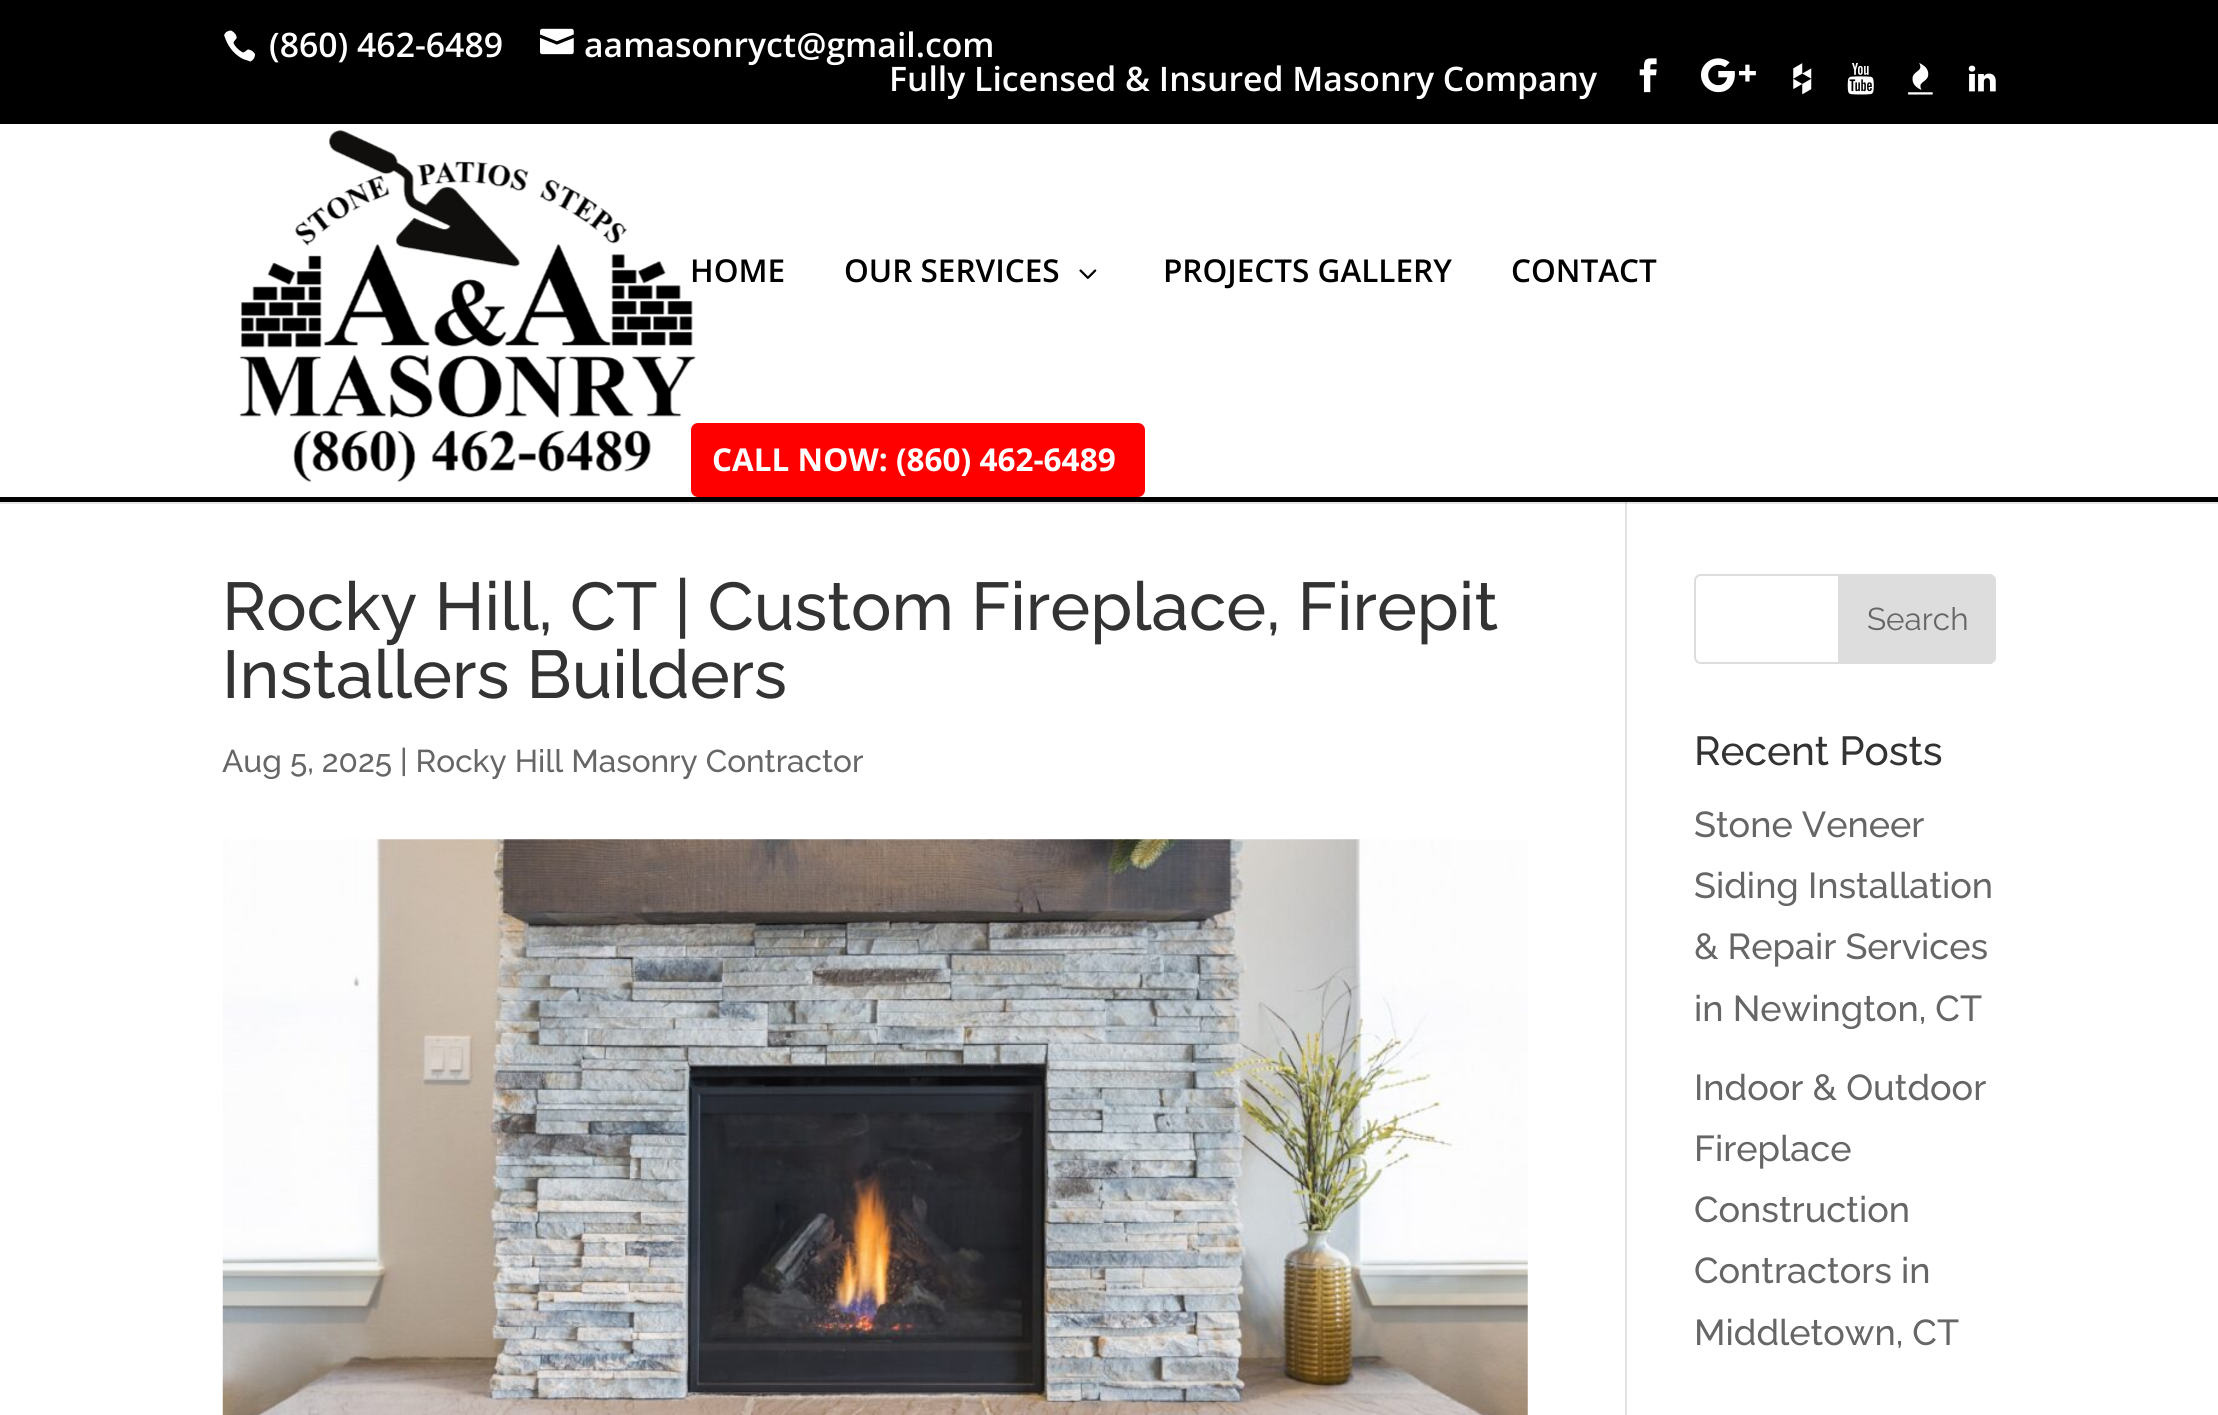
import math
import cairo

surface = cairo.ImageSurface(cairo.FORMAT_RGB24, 2218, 1415)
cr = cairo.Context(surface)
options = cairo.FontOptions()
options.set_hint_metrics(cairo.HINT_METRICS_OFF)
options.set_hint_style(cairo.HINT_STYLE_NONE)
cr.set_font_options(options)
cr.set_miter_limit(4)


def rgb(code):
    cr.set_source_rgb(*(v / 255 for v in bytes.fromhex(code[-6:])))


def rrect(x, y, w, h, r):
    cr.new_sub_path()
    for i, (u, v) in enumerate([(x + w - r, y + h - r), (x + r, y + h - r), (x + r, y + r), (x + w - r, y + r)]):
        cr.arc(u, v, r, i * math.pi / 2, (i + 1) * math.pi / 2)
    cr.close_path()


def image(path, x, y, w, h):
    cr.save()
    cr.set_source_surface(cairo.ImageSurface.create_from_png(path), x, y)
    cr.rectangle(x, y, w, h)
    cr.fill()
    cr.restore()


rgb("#ffffff")
cr.paint()
rgb("#000000")
cr.rectangle(0, 0, 2218, 124)
cr.fill()
image("img/1.png", 224, 30, 32, 32)
image("img/2.png", 540, 28, 34, 27)
image("img/3.png", 1639, 58, 18, 35)
image("img/4.png", 1701, 58, 55, 35)
image("img/5.png", 1793, 63, 19, 32)
image("img/6.png", 1847, 63, 27, 32)
image("img/7.png", 1908, 63, 25, 32)
image("img/8.png", 1968, 65, 28, 27)
rgb("#e2e2e2")
cr.rectangle(1625, 502, 2, 913)
cr.fill()
cr.set_source_rgba(0, 0, 0, 0.1)
cr.new_path()
cr.move_to(0, 502)
cr.line_to(0, 504)
cr.line_to(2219, 504)
cr.line_to(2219, 124)
cr.line_to(2218, 124)
cr.line_to(2218, 502)
cr.close_path()
cr.fill()
rgb("#000000")
cr.rectangle(0, 497, 2218, 5)
cr.fill()
image("img/9.png", 239, 130, 457, 353)
image("img/10.png", 1079, 269, 18, 10)
rgb("#ff0000")
rrect(691, 423, 454, 74, 7)
cr.fill()
image("img/11.png", 222, 839, 1306, 576)
rrect(1695, 575, 300, 88, 6)
rgb("#dddddd")
cr.stroke()
cr.new_path()
cr.move_to(1839, 575)
cr.line_to(1989, 575)
cr.curve_to(1992.5, 575, 1995, 577.5, 1995, 581)
cr.line_to(1995, 657)
cr.curve_to(1995, 660.5, 1992.5, 663, 1989, 663)
cr.line_to(1839, 663)
cr.close_path()
cr.fill_preserve()
cr.stroke()
cr.select_font_face("Open Sans SemiBold")
cr.set_font_size(33.75)
rgb("#ffffff")
for x, y, s in [
    (269, 57, "(860) 462-6489"),
    (584, 57, "aamasonryct@gmail.com"),
    (889, 91, "Fully Licensed & Insured Masonry Company"),
]:
    cr.move_to(x, y)
    cr.show_text(s)
cr.set_font_size(31.5)
rgb("#000000")
for x, y, s in [
    (690, 282, "HOME"),
    (844, 282, "OUR SERVICES"),
    (1163, 282, "PROJECTS GALLERY"),
    (1511, 282, "CONTACT"),
]:
    cr.move_to(x, y)
    cr.show_text(s)
cr.select_font_face("Open Sans", cairo.FONT_SLANT_NORMAL, cairo.FONT_WEIGHT_BOLD)
rgb("#ffffff")
cr.move_to(712, 471)
cr.show_text("CALL NOW: (860) 462-6489")
cr.select_font_face("Raleway Medium")
cr.set_font_size(67.5)
rgb("#333333")
cr.move_to(222, 630)
cr.show_text("Rocky Hill, CT | Custom Fireplace, Firepit")
cr.move_to(222, 698)
cr.show_text("Installers Builders")
cr.set_font_size(31.5)
rgb("#666666")
cr.move_to(222, 772)
cr.show_text("Aug 5, 2025 | Rocky Hill Masonry Contractor")
cr.select_font_face("Raleway")
cr.move_to(1867, 630)
cr.show_text("Search")
cr.select_font_face("Raleway Medium")
cr.set_font_size(40.5)
rgb("#333333")
cr.move_to(1694, 765)
cr.show_text("Recent Posts")
cr.set_font_size(36)
rgb("#666666")
for x, y, s in [
    (1694, 837, "Stone Veneer"),
    (1694, 898, "Siding Installation"),
    (1694, 959, "& Repair Services"),
    (1694, 1021, "in Newington, CT"),
    (1694, 1100, "Indoor & Outdoor"),
    (1694, 1161, "Fireplace"),
    (1694, 1222, "Construction"),
    (1694, 1283, "Contractors in"),
    (1694, 1345, "Middletown, CT"),
]:
    cr.move_to(x, y)
    cr.show_text(s)
surface.write_to_png("page.png")
